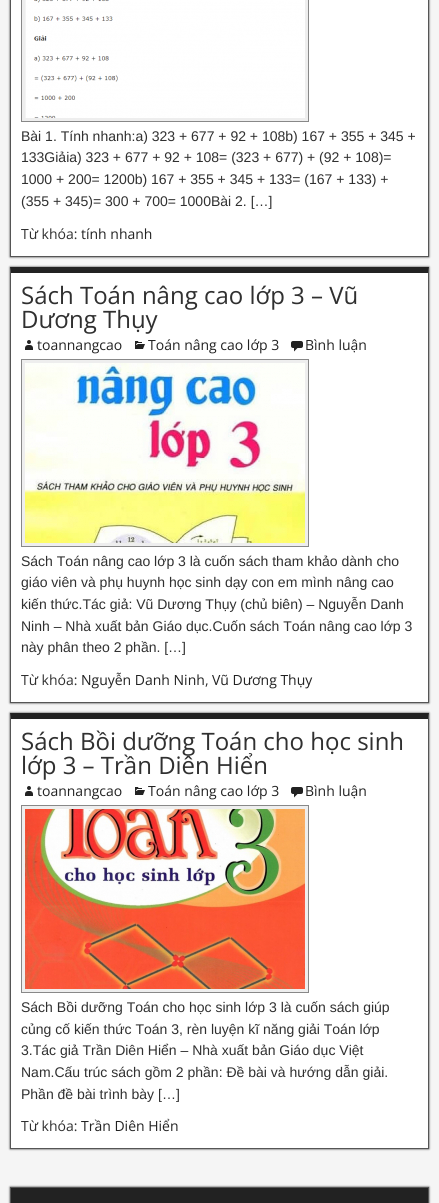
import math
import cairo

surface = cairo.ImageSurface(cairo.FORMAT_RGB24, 439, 1203)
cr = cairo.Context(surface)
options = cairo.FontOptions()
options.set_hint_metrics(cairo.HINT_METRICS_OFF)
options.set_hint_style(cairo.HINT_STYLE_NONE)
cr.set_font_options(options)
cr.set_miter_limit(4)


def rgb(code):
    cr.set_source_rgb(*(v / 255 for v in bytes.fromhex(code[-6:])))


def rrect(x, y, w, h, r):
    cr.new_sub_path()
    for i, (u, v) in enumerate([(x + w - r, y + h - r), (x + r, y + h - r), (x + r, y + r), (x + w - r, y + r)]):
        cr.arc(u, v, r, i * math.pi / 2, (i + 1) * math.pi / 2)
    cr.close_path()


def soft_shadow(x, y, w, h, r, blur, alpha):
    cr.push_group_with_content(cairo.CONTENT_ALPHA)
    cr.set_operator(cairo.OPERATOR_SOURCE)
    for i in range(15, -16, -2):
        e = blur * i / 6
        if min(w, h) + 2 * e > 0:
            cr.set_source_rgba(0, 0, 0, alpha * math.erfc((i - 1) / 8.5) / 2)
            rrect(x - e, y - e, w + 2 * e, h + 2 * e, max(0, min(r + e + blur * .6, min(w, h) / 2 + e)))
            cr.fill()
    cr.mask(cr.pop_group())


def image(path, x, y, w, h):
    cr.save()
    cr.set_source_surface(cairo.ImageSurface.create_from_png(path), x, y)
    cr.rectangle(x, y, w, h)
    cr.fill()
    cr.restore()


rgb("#f5f5f5")
cr.paint()
rgb("#333333")
soft_shadow(10, -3, 419, 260, 0, 1, 1)
rgb("#ffffff")
cr.rectangle(11, 0, 417, 256)
cr.fill()
rgb("#555555")
cr.new_path()
cr.move_to(429, -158)
cr.line_to(429, 257)
cr.line_to(428, 256)
cr.line_to(428, -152)
cr.close_path()
cr.fill()
cr.rectangle(10, 256, 419, 1)
cr.fill()
cr.new_path()
cr.move_to(10, 257)
cr.line_to(10, -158)
cr.line_to(11, -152)
cr.line_to(11, 256)
cr.close_path()
cr.fill()
rgb("#eeeeee")
cr.rectangle(21.5, -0.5, 287, 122)
cr.fill_preserve()
rgb("#888888")
cr.set_line_width(1)
cr.stroke()
image("img/1.png", 25, 0, 280, 118)
rgb("#333333")
soft_shadow(10, 267, 419, 436, 0, 1, 1)
rgb("#ffffff")
cr.rectangle(11, 273, 417, 429)
cr.fill()
rgb("#222222")
cr.new_path()
cr.move_to(10, 267)
cr.line_to(429, 267)
cr.line_to(428, 273)
cr.line_to(11, 273)
cr.close_path()
cr.fill()
rgb("#555555")
cr.new_path()
cr.move_to(429, 267)
cr.line_to(429, 703)
cr.line_to(428, 702)
cr.line_to(428, 273)
cr.close_path()
cr.fill()
cr.rectangle(10, 702, 419, 1)
cr.fill()
cr.new_path()
cr.move_to(10, 703)
cr.line_to(10, 267)
cr.line_to(11, 273)
cr.line_to(11, 702)
cr.close_path()
cr.fill()
image("img/2.png", 25, 340, 8, 10)
image("img/3.png", 135, 341, 10, 8)
image("img/4.png", 291, 341, 12, 11)
rgb("#eeeeee")
cr.rectangle(21.5, 359.5, 287, 187)
cr.fill_preserve()
rgb("#888888")
cr.stroke()
image("img/5.png", 25, 363, 280, 180)
rgb("#333333")
soft_shadow(10, 713, 419, 436, 0, 1, 1)
rgb("#ffffff")
cr.rectangle(11, 719, 417, 429)
cr.fill()
rgb("#222222")
cr.new_path()
cr.move_to(10, 713)
cr.line_to(429, 713)
cr.line_to(428, 719)
cr.line_to(11, 719)
cr.close_path()
cr.fill()
rgb("#555555")
cr.new_path()
cr.move_to(429, 713)
cr.line_to(429, 1149)
cr.line_to(428, 1148)
cr.line_to(428, 719)
cr.close_path()
cr.fill()
cr.rectangle(10, 1148, 419, 1)
cr.fill()
cr.new_path()
cr.move_to(10, 1149)
cr.line_to(10, 713)
cr.line_to(11, 719)
cr.line_to(11, 1148)
cr.close_path()
cr.fill()
image("img/2.png", 25, 786, 8, 10)
image("img/3.png", 135, 787, 10, 8)
image("img/4.png", 291, 787, 12, 11)
rgb("#eeeeee")
cr.rectangle(21.5, 805.5, 287, 187)
cr.fill_preserve()
rgb("#888888")
cr.stroke()
image("img/6.png", 25, 809, 280, 180)
rgb("#333333")
soft_shadow(10, 1187, 419, 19, 0, 1, 1)
cr.rectangle(10.5, 1187.5, 418, 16)
rgb("#555555")
cr.stroke()
rgb("#222222")
cr.rectangle(11, 1188, 417, 15)
cr.fill()
cr.select_font_face("Arimo")
cr.set_font_size(14)
rgb("#303030")
for x, y, s in [
    (21, 141, "Bài 1. Tính nhanh:a) 323 + 677 + 92 + 108b) 167 + 355 + 345 +"),
    (21, 162, "133Giảia) 323 + 677 + 92 + 108= (323 + 677) + (92 + 108)="),
    (21, 184, "1000 + 200= 1200b) 167 + 355 + 345 + 133= (167 + 133) +"),
    (21, 206, "(355 + 345)= 300 + 700= 1000Bài 2. […]"),
]:
    cr.move_to(x, y)
    cr.show_text(s)
cr.select_font_face("Open Sans")
cr.move_to(21, 239)
cr.show_text("Từ khóa:")
rgb("#222222")
cr.move_to(81, 239)
cr.show_text("tính nhanh")
cr.set_font_size(24)
rgb("#303030")
cr.move_to(21, 304)
cr.show_text("Sách Toán nâng cao lớp 3 – Vũ")
cr.move_to(21, 328)
cr.show_text("Dương Thụy")
cr.set_font_size(14)
rgb("#222222")
for x, y, s in [
    (37, 350, "toannangcao"),
    (148, 350, "Toán nâng cao lớp 3"),
    (305, 350, "Bình luận"),
]:
    cr.move_to(x, y)
    cr.show_text(s)
cr.select_font_face("Arimo")
rgb("#303030")
for x, y, s in [
    (21, 566, "Sách Toán nâng cao lớp 3 là cuốn sách tham khảo dành cho"),
    (21, 587, "giáo viên và phụ huynh học sinh dạy con em mình nâng cao"),
    (21, 609, "kiến thức.Tác giả: Vũ Dương Thụy (chủ biên) – Nguyễn Danh"),
    (21, 631, "Ninh – Nhà xuất bản Giáo dục.Cuốn sách Toán nâng cao lớp 3"),
    (21, 652, "này phân theo 2 phần. […]"),
]:
    cr.move_to(x, y)
    cr.show_text(s)
cr.select_font_face("Open Sans")
cr.move_to(21, 685)
cr.show_text("Từ khóa:")
rgb("#222222")
cr.move_to(81, 685)
cr.show_text("Nguyễn Danh Ninh")
rgb("#303030")
cr.move_to(205, 685)
cr.show_text(",")
rgb("#222222")
cr.move_to(212, 685)
cr.show_text("Vũ Dương Thụy")
cr.set_font_size(24)
rgb("#303030")
cr.move_to(21, 750)
cr.show_text("Sách Bồi dưỡng Toán cho học sinh")
cr.move_to(21, 774)
cr.show_text("lớp 3 – Trần Diên Hiển")
cr.set_font_size(14)
rgb("#222222")
for x, y, s in [
    (37, 796, "toannangcao"),
    (148, 796, "Toán nâng cao lớp 3"),
    (305, 796, "Bình luận"),
]:
    cr.move_to(x, y)
    cr.show_text(s)
cr.select_font_face("Arimo")
rgb("#303030")
for x, y, s in [
    (21, 1012, "Sách Bồi dưỡng Toán cho học sinh lớp 3 là cuốn sách giúp"),
    (21, 1034, "củng cố kiến thức Toán 3, rèn luyện kĩ năng giải Toán lớp"),
    (21, 1055, "3.Tác giả Trần Diên Hiển – Nhà xuất bản Giáo dục Việt"),
    (21, 1077, "Nam.Cấu trúc sách gồm 2 phần: Đề bài và hướng dẫn giải."),
    (21, 1099, "Phần đề bài trình bày […]"),
]:
    cr.move_to(x, y)
    cr.show_text(s)
cr.select_font_face("Open Sans")
cr.move_to(21, 1131)
cr.show_text("Từ khóa:")
rgb("#222222")
cr.move_to(81, 1131)
cr.show_text("Trần Diên Hiển")
surface.write_to_png("page.png")
